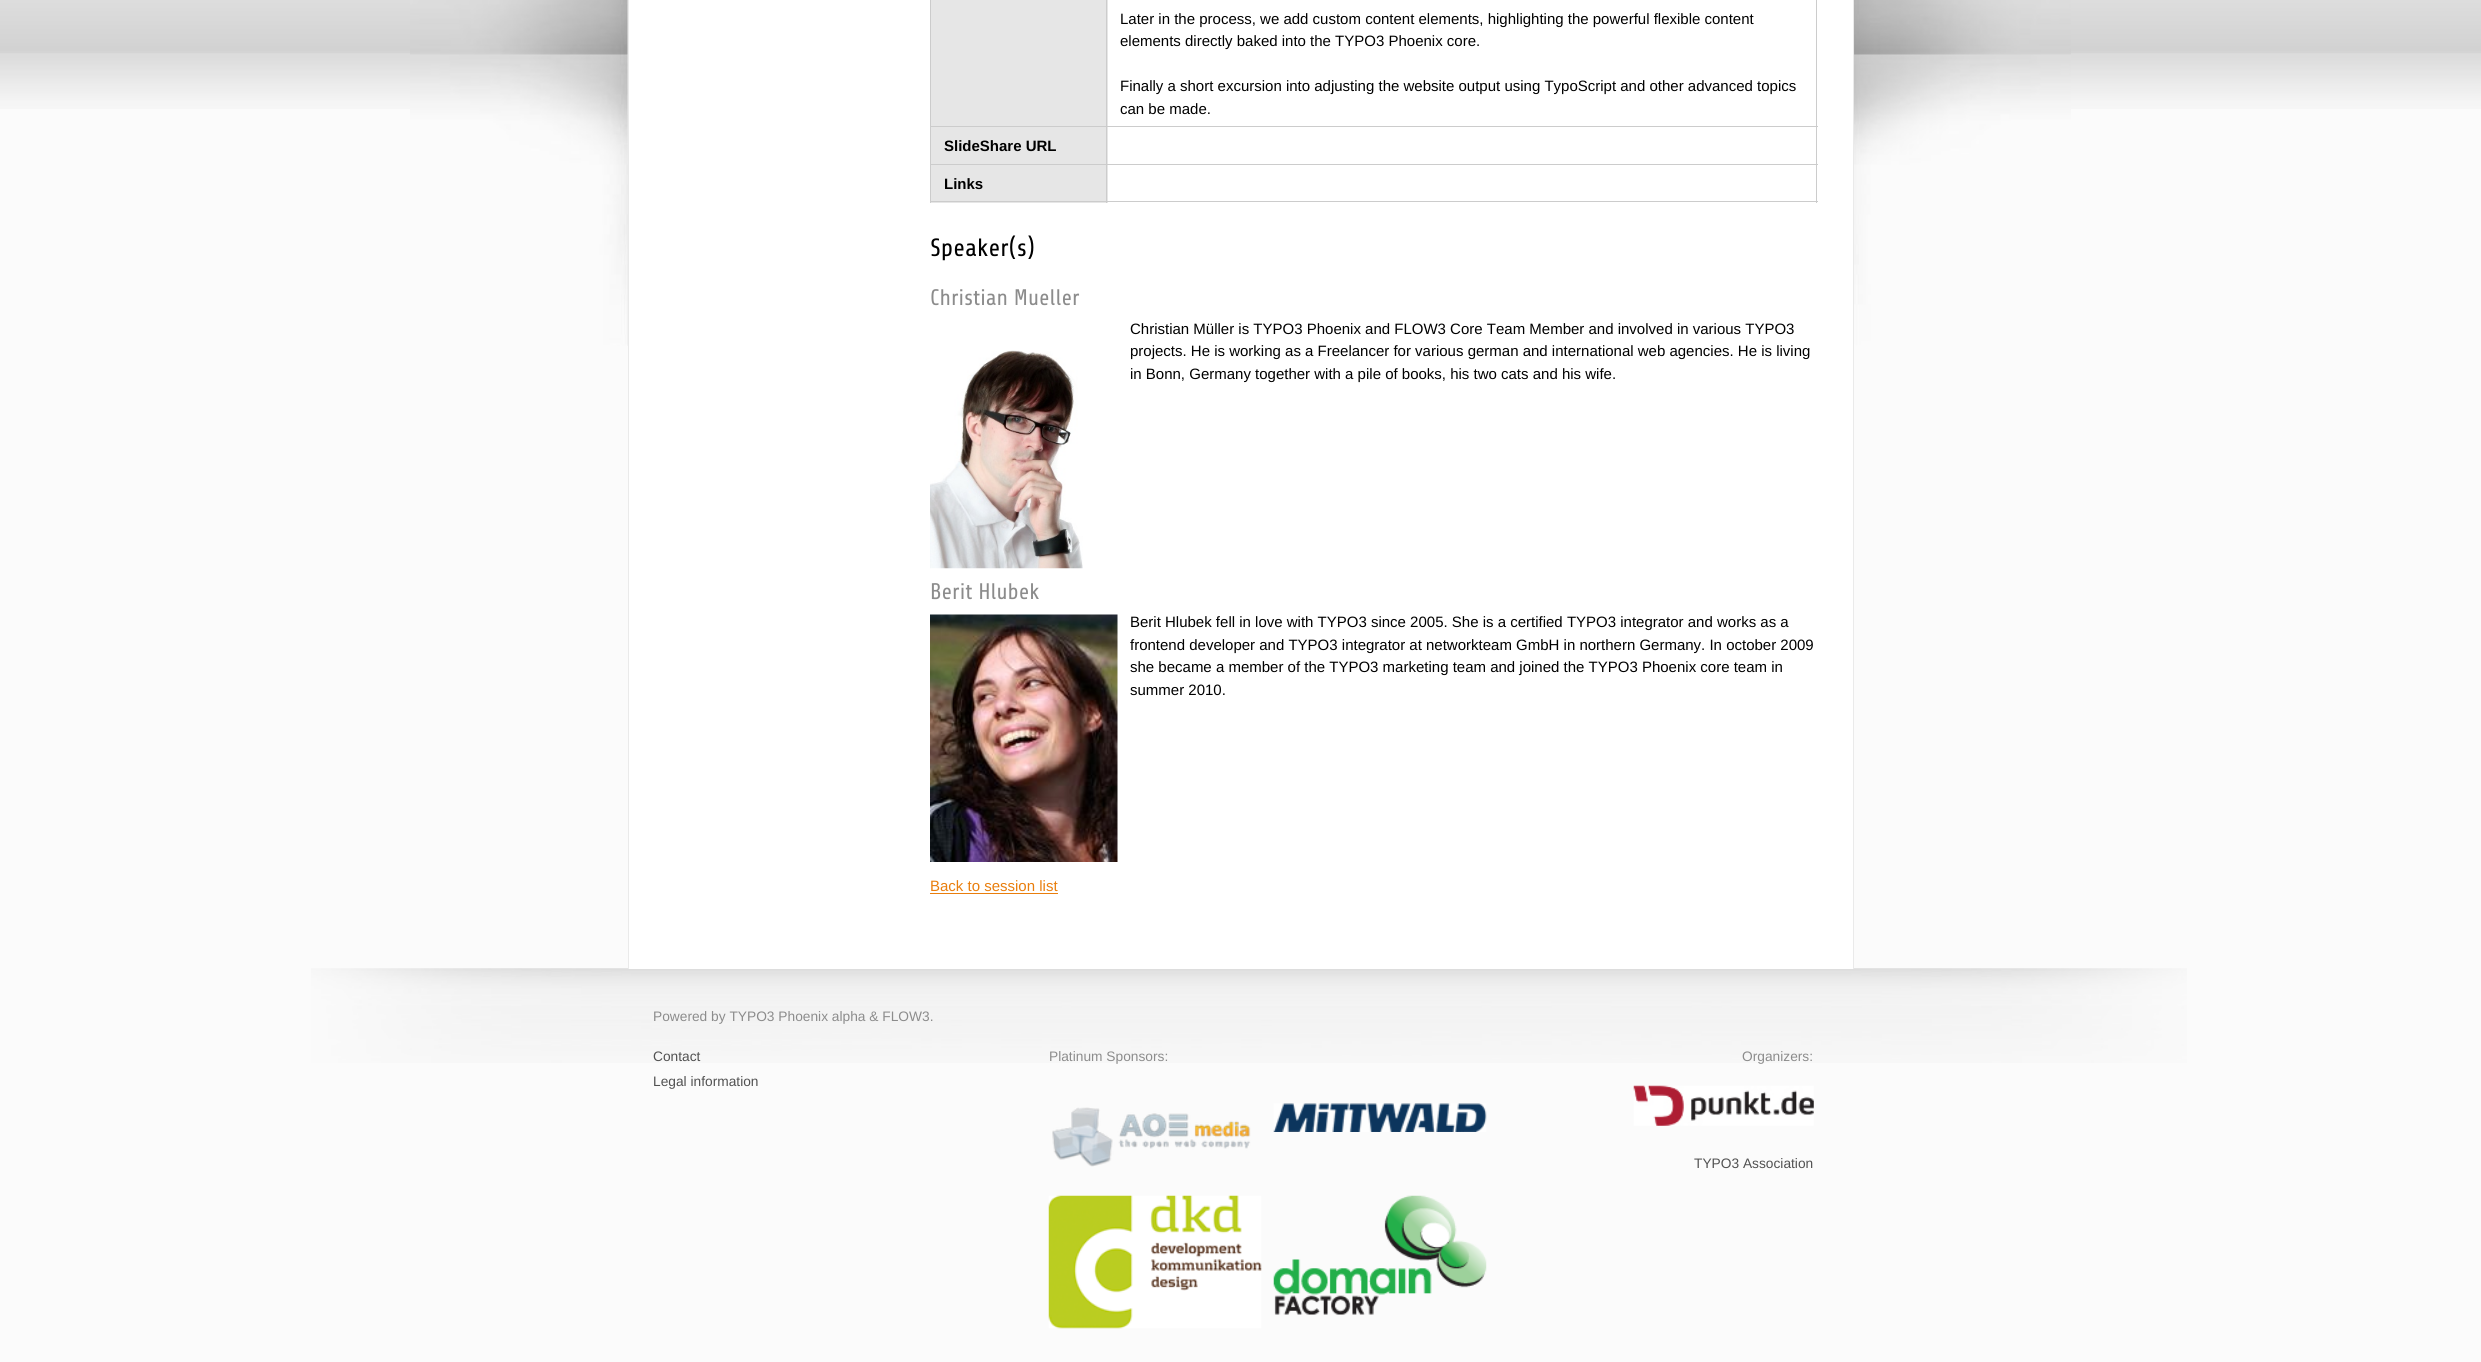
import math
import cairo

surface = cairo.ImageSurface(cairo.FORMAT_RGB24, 2481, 1362)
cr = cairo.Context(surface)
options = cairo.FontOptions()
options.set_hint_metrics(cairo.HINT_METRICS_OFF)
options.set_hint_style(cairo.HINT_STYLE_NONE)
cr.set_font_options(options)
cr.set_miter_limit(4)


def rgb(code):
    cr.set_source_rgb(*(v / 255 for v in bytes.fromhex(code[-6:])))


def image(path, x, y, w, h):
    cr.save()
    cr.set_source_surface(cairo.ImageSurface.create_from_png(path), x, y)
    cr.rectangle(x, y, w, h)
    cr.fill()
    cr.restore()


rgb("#fbfbfb")
cr.paint()
image("img/1.png", 0, 0, 2481, 109)
image("img/2.png", 410, 0, 1661, 346)
image("img/5.png", 311, 968, 1876, 95)
for x, y, w, h, color in [
    (629, 0, 1224, 969, "#ffffff"),
    (1853, 0, 1, 969, "#eaeaea"),
    (628, 0, 1, 969, "#eaeaea"),
    (931, 0, 177, 164, "#e6e6e6"),
    (1106, 126, 712, 1, "#cccccc"),
    (1106, 164, 712, 1, "#cccccc"),
    (931, 165, 177, 38, "#e6e6e6"),
    (1816, 164, 1, 39, "#cccccc"),
    (1106, 201, 712, 1, "#cccccc"),
    (1106, 164, 1, 39, "#cccccc"),
    (930, 164, 178, 1, "#cccccc"),
    (1106, 126, 1, 39, "#cccccc"),
    (930, 126, 178, 1, "#cccccc"),
    (1106, 0, 1, 128, "#cccccc"),
    (930, 201, 178, 1, "#cccccc"),
    (930, 164, 1, 39, "#cccccc"),
    (930, 0, 1, 165, "#cccccc"),
    (1816, 0, 1, 165, "#cccccc"),
]:
    rgb(color)
    cr.rectangle(x, y, w, h)
    cr.fill()
image("img/3.png", 930, 350, 153, 219)
image("img/4.png", 930, 614, 188, 248)
rgb("#e97e0d")
cr.rectangle(930, 893, 128, 1)
cr.fill()
image("img/6.png", 1052, 1107, 199, 60)
image("img/7.png", 1273, 1103, 214, 29)
image("img/8.png", 1048, 1195, 214, 134)
image("img/9.png", 1273, 1195, 214, 120)
image("img/10.png", 1633, 1085, 181, 41)
cr.select_font_face("Liberation Sans")
cr.set_font_size(15)
rgb("#000000")
for x, y, s in [
    (1120, 24, "Later in the process, we add custom content elements, highlighting the powerful flexible content"),
    (1120, 46, "elements directly baked into the TYPO3 Phoenix core."),
    (1120, 91, "Finally a short excursion into adjusting the website output using TypoScript and other advanced topics"),
    (1120, 114, "can be made."),
]:
    cr.move_to(x, y)
    cr.show_text(s)
cr.select_font_face("Liberation Sans", cairo.FONT_SLANT_NORMAL, cairo.FONT_WEIGHT_BOLD)
cr.move_to(944, 151)
cr.show_text("SlideShare URL")
cr.move_to(944, 189)
cr.show_text("Links")
cr.select_font_face("Share")
cr.set_font_size(25)
cr.move_to(930, 256)
cr.show_text("Speaker(s)")
cr.set_font_size(22.5)
rgb("#8c8c8c")
cr.move_to(930, 305)
cr.show_text("Christian Mueller")
cr.select_font_face("Liberation Sans")
cr.set_font_size(15)
rgb("#000000")
for x, y, s in [
    (1130, 334, "Christian Müller is TYPO3 Phoenix and FLOW3 Core Team Member and involved in various TYPO3"),
    (1130, 356, "projects. He is working as a Freelancer for various german and international web agencies. He is living"),
    (1130, 379, "in Bonn, Germany together with a pile of books, his two cats and his wife."),
]:
    cr.move_to(x, y)
    cr.show_text(s)
cr.select_font_face("Share")
cr.set_font_size(22.5)
rgb("#8c8c8c")
cr.move_to(930, 599)
cr.show_text("Berit Hlubek")
cr.select_font_face("Liberation Sans")
cr.set_font_size(15)
rgb("#000000")
for x, y, s in [
    (1130, 627, "Berit Hlubek fell in love with TYPO3 since 2005. She is a certified TYPO3 integrator and works as a"),
    (1130, 650, "frontend developer and TYPO3 integrator at networkteam GmbH in northern Germany. In october 2009"),
    (1130, 672, "she became a member of the TYPO3 marketing team and joined the TYPO3 Phoenix core team in"),
    (1130, 695, "summer 2010."),
]:
    cr.move_to(x, y)
    cr.show_text(s)
rgb("#e97e0d")
cr.move_to(930, 891)
cr.show_text("Back to session list")
cr.set_font_size(13.75)
rgb("#8c8c8c")
cr.move_to(653, 1021)
cr.show_text("Powered by TYPO3 Phoenix alpha & FLOW3.")
rgb("#515151")
cr.move_to(653, 1061)
cr.show_text("Contact")
cr.move_to(653, 1086)
cr.show_text("Legal information")
rgb("#8c8c8c")
cr.move_to(1049, 1061)
cr.show_text("Platinum Sponsors:")
cr.move_to(1742, 1061)
cr.show_text("Organizers:")
rgb("#515151")
cr.move_to(1694, 1168)
cr.show_text("TYPO3 Association")
surface.write_to_png("page.png")
